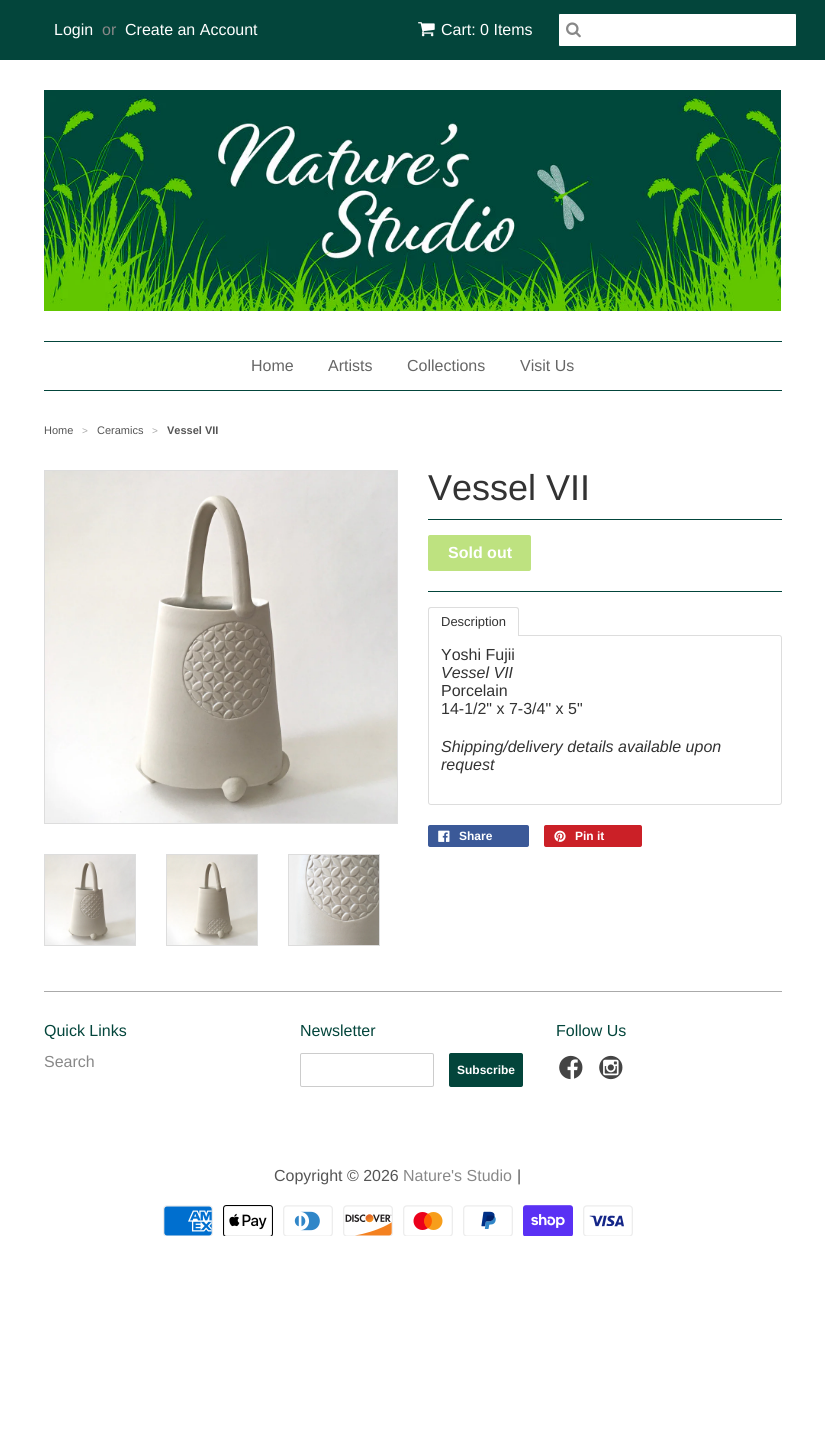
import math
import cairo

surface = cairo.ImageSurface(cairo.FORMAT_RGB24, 825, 1438)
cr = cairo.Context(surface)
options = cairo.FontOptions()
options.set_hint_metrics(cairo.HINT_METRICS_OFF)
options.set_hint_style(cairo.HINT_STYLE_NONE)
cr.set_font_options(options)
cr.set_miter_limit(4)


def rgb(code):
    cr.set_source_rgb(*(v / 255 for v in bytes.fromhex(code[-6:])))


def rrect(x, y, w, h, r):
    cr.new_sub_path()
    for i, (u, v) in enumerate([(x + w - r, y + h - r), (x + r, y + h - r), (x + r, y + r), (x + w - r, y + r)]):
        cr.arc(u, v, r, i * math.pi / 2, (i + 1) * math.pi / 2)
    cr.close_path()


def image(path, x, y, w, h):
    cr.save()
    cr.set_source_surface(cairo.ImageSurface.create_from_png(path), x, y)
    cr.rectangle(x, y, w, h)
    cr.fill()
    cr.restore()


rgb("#ffffff")
cr.paint()
rgb("#03453b")
cr.rectangle(0, 0, 825, 60)
cr.fill()
image("img/1.png", 418, 22, 17, 15)
rgb("#ffffff")
rrect(558.5, 13.5, 238, 33, 1.5)
cr.fill_preserve()
rgb("#03453b")
cr.set_line_width(1)
cr.stroke()
image("img/2.png", 566, 22, 15, 16)
image("img/3.png", 44, 90, 737, 221)
cr.rectangle(44, 341, 738, 1)
cr.fill()
cr.rectangle(44, 390, 738, 1)
cr.fill()
cr.rectangle(44.5, 470.5, 353, 353)
rgb("#dddddd")
cr.stroke()
image("img/4.png", 45, 471, 352, 352)
cr.rectangle(44.5, 854.5, 91, 91)
cr.stroke()
image("img/5.png", 45, 855, 90, 90)
cr.rectangle(166.5, 854.5, 91, 91)
cr.stroke()
image("img/6.png", 167, 855, 90, 90)
cr.rectangle(288.5, 854.5, 91, 91)
cr.stroke()
image("img/7.png", 289, 855, 90, 90)
rgb("#03453b")
cr.rectangle(428, 519, 354, 1)
cr.fill()
cr.rectangle(428, 591, 354, 1)
cr.fill()
rgb("#bee280")
rrect(428, 535, 103, 36, 2)
cr.fill()
cr.new_path()
cr.move_to(428.5, 635.5)
cr.line_to(779, 635.5)
cr.curve_to(780.5, 635.5, 781.5, 636.5, 781.5, 638)
cr.line_to(781.5, 802)
cr.curve_to(781.5, 803.5, 780.5, 804.5, 779, 804.5)
cr.line_to(431, 804.5)
cr.curve_to(429.5, 804.5, 428.5, 803.5, 428.5, 802)
cr.close_path()
rgb("#dddddd")
cr.stroke()
rgb("#ffffff")
cr.new_path()
cr.move_to(431, 608)
cr.line_to(516, 608)
cr.curve_to(517, 608, 518, 609, 518, 610)
cr.line_to(518, 636)
cr.line_to(429, 636)
cr.line_to(429, 610)
cr.curve_to(429, 609, 430, 608, 431, 608)
cr.close_path()
cr.fill()
rgb("#dddddd")
cr.set_fill_rule(cairo.FILL_RULE_EVEN_ODD)
cr.new_path()
cr.move_to(431, 607)
cr.line_to(516, 607)
cr.curve_to(518, 607, 519, 608, 519, 610)
cr.line_to(519, 636)
cr.line_to(428, 636)
cr.line_to(428, 610)
cr.curve_to(428, 608, 429, 607, 431, 607)
cr.close_path()
cr.move_to(431, 608)
cr.line_to(516, 608)
cr.curve_to(517, 608, 518, 609, 518, 610)
cr.line_to(518, 636)
cr.line_to(429, 636)
cr.line_to(429, 610)
cr.curve_to(429, 609, 430, 608, 431, 608)
cr.close_path()
cr.fill()
rgb("#3b5998")
rrect(428, 825, 101, 22, 2)
cr.fill()
image("img/8.png", 438, 830, 12, 12)
rgb("#cb2027")
rrect(544, 825, 98, 22, 2)
cr.fill()
image("img/9.png", 554, 830, 12, 12)
rgb("#aaaaaa")
cr.rectangle(44, 991, 738, 1)
cr.fill()
rrect(300.5, 1053.5, 133, 33, 1.5)
rgb("#cccccc")
cr.stroke()
rgb("#03453b")
rrect(449, 1053, 74, 34, 2)
cr.fill()
image("img/10.png", 559, 1055, 24, 25)
image("img/11.png", 599, 1055, 24, 25)
image("img/12.png", 163, 1205, 50, 31)
image("img/13.png", 223, 1205, 50, 31)
image("img/14.png", 283, 1205, 50, 31)
image("img/15.png", 343, 1205, 50, 31)
image("img/16.png", 403, 1205, 50, 31)
image("img/17.png", 463, 1205, 50, 31)
image("img/18.png", 523, 1205, 50, 31)
image("img/19.png", 583, 1205, 50, 31)
cr.select_font_face("Liberation Sans")
cr.set_font_size(16)
rgb("#ffffff")
cr.move_to(54, 35)
cr.show_text("Login")
rgb("#888888")
cr.move_to(102, 35)
cr.show_text("or")
rgb("#ffffff")
cr.move_to(125, 35)
cr.show_text("Create an Account")
cr.move_to(441, 35)
cr.show_text("Cart: 0 Items")
rgb("#666666")
for x, y, s in [
    (251, 371, "Home"),
    (328, 371, "Artists"),
    (407, 371, "Collections"),
    (520, 371, "Visit Us"),
]:
    cr.move_to(x, y)
    cr.show_text(s)
cr.set_font_size(11)
rgb("#555555")
cr.move_to(44, 434)
cr.show_text("Home")
cr.set_font_size(10)
rgb("#aaaaaa")
cr.move_to(82, 434)
cr.show_text(">")
cr.set_font_size(11)
rgb("#555555")
cr.move_to(97, 434)
cr.show_text("Ceramics")
cr.set_font_size(10)
rgb("#aaaaaa")
cr.move_to(152, 434)
cr.show_text(">")
cr.select_font_face("Liberation Sans", cairo.FONT_SLANT_NORMAL, cairo.FONT_WEIGHT_BOLD)
cr.set_font_size(11)
rgb("#555555")
cr.move_to(167, 434)
cr.show_text("Vessel VII")
cr.select_font_face("Liberation Sans")
cr.set_font_size(36)
rgb("#333333")
cr.move_to(428, 500)
cr.show_text("Vessel VII")
cr.select_font_face("Liberation Sans", cairo.FONT_SLANT_NORMAL, cairo.FONT_WEIGHT_BOLD)
cr.set_font_size(16)
rgb("#ffffff")
cr.move_to(448, 558)
cr.show_text("Sold out")
cr.select_font_face("Liberation Sans")
cr.set_font_size(13)
rgb("#333333")
cr.move_to(441, 626)
cr.show_text("Description")
cr.set_font_size(16)
cr.move_to(441, 660)
cr.show_text("Yoshi Fujii")
cr.select_font_face("Liberation Sans", cairo.FONT_SLANT_ITALIC)
cr.move_to(441, 678)
cr.show_text("Vessel VII")
cr.select_font_face("Liberation Sans")
cr.move_to(441, 696)
cr.show_text("Porcelain")
cr.move_to(441, 714)
cr.show_text("14-1/2\" x 7-3/4\" x 5\"")
cr.select_font_face("Liberation Sans", cairo.FONT_SLANT_ITALIC)
cr.move_to(441, 752)
cr.show_text("Shipping/delivery details available upon")
cr.move_to(441, 770)
cr.show_text("request")
cr.select_font_face("Liberation Sans", cairo.FONT_SLANT_NORMAL, cairo.FONT_WEIGHT_BOLD)
cr.set_font_size(12)
rgb("#ffffff")
cr.move_to(459, 840)
cr.show_text("Share")
cr.move_to(575, 840)
cr.show_text("Pin it")
cr.select_font_face("Liberation Sans")
cr.set_font_size(16)
rgb("#03453b")
cr.move_to(44, 1036)
cr.show_text("Quick Links")
rgb("#888888")
cr.move_to(44, 1067)
cr.show_text("Search")
rgb("#03453b")
cr.move_to(300, 1036)
cr.show_text("Newsletter")
cr.select_font_face("Liberation Sans", cairo.FONT_SLANT_NORMAL, cairo.FONT_WEIGHT_BOLD)
cr.set_font_size(12)
rgb("#ffffff")
cr.move_to(457, 1074)
cr.show_text("Subscribe")
cr.select_font_face("Liberation Sans")
cr.set_font_size(16)
rgb("#03453b")
cr.move_to(556, 1036)
cr.show_text("Follow Us")
rgb("#555555")
cr.move_to(274, 1181)
cr.show_text("Copyright © 2026")
rgb("#888888")
cr.move_to(403, 1181)
cr.show_text("Nature's Studio")
rgb("#555555")
cr.move_to(517, 1181)
cr.show_text("|")
surface.write_to_png("page.png")
